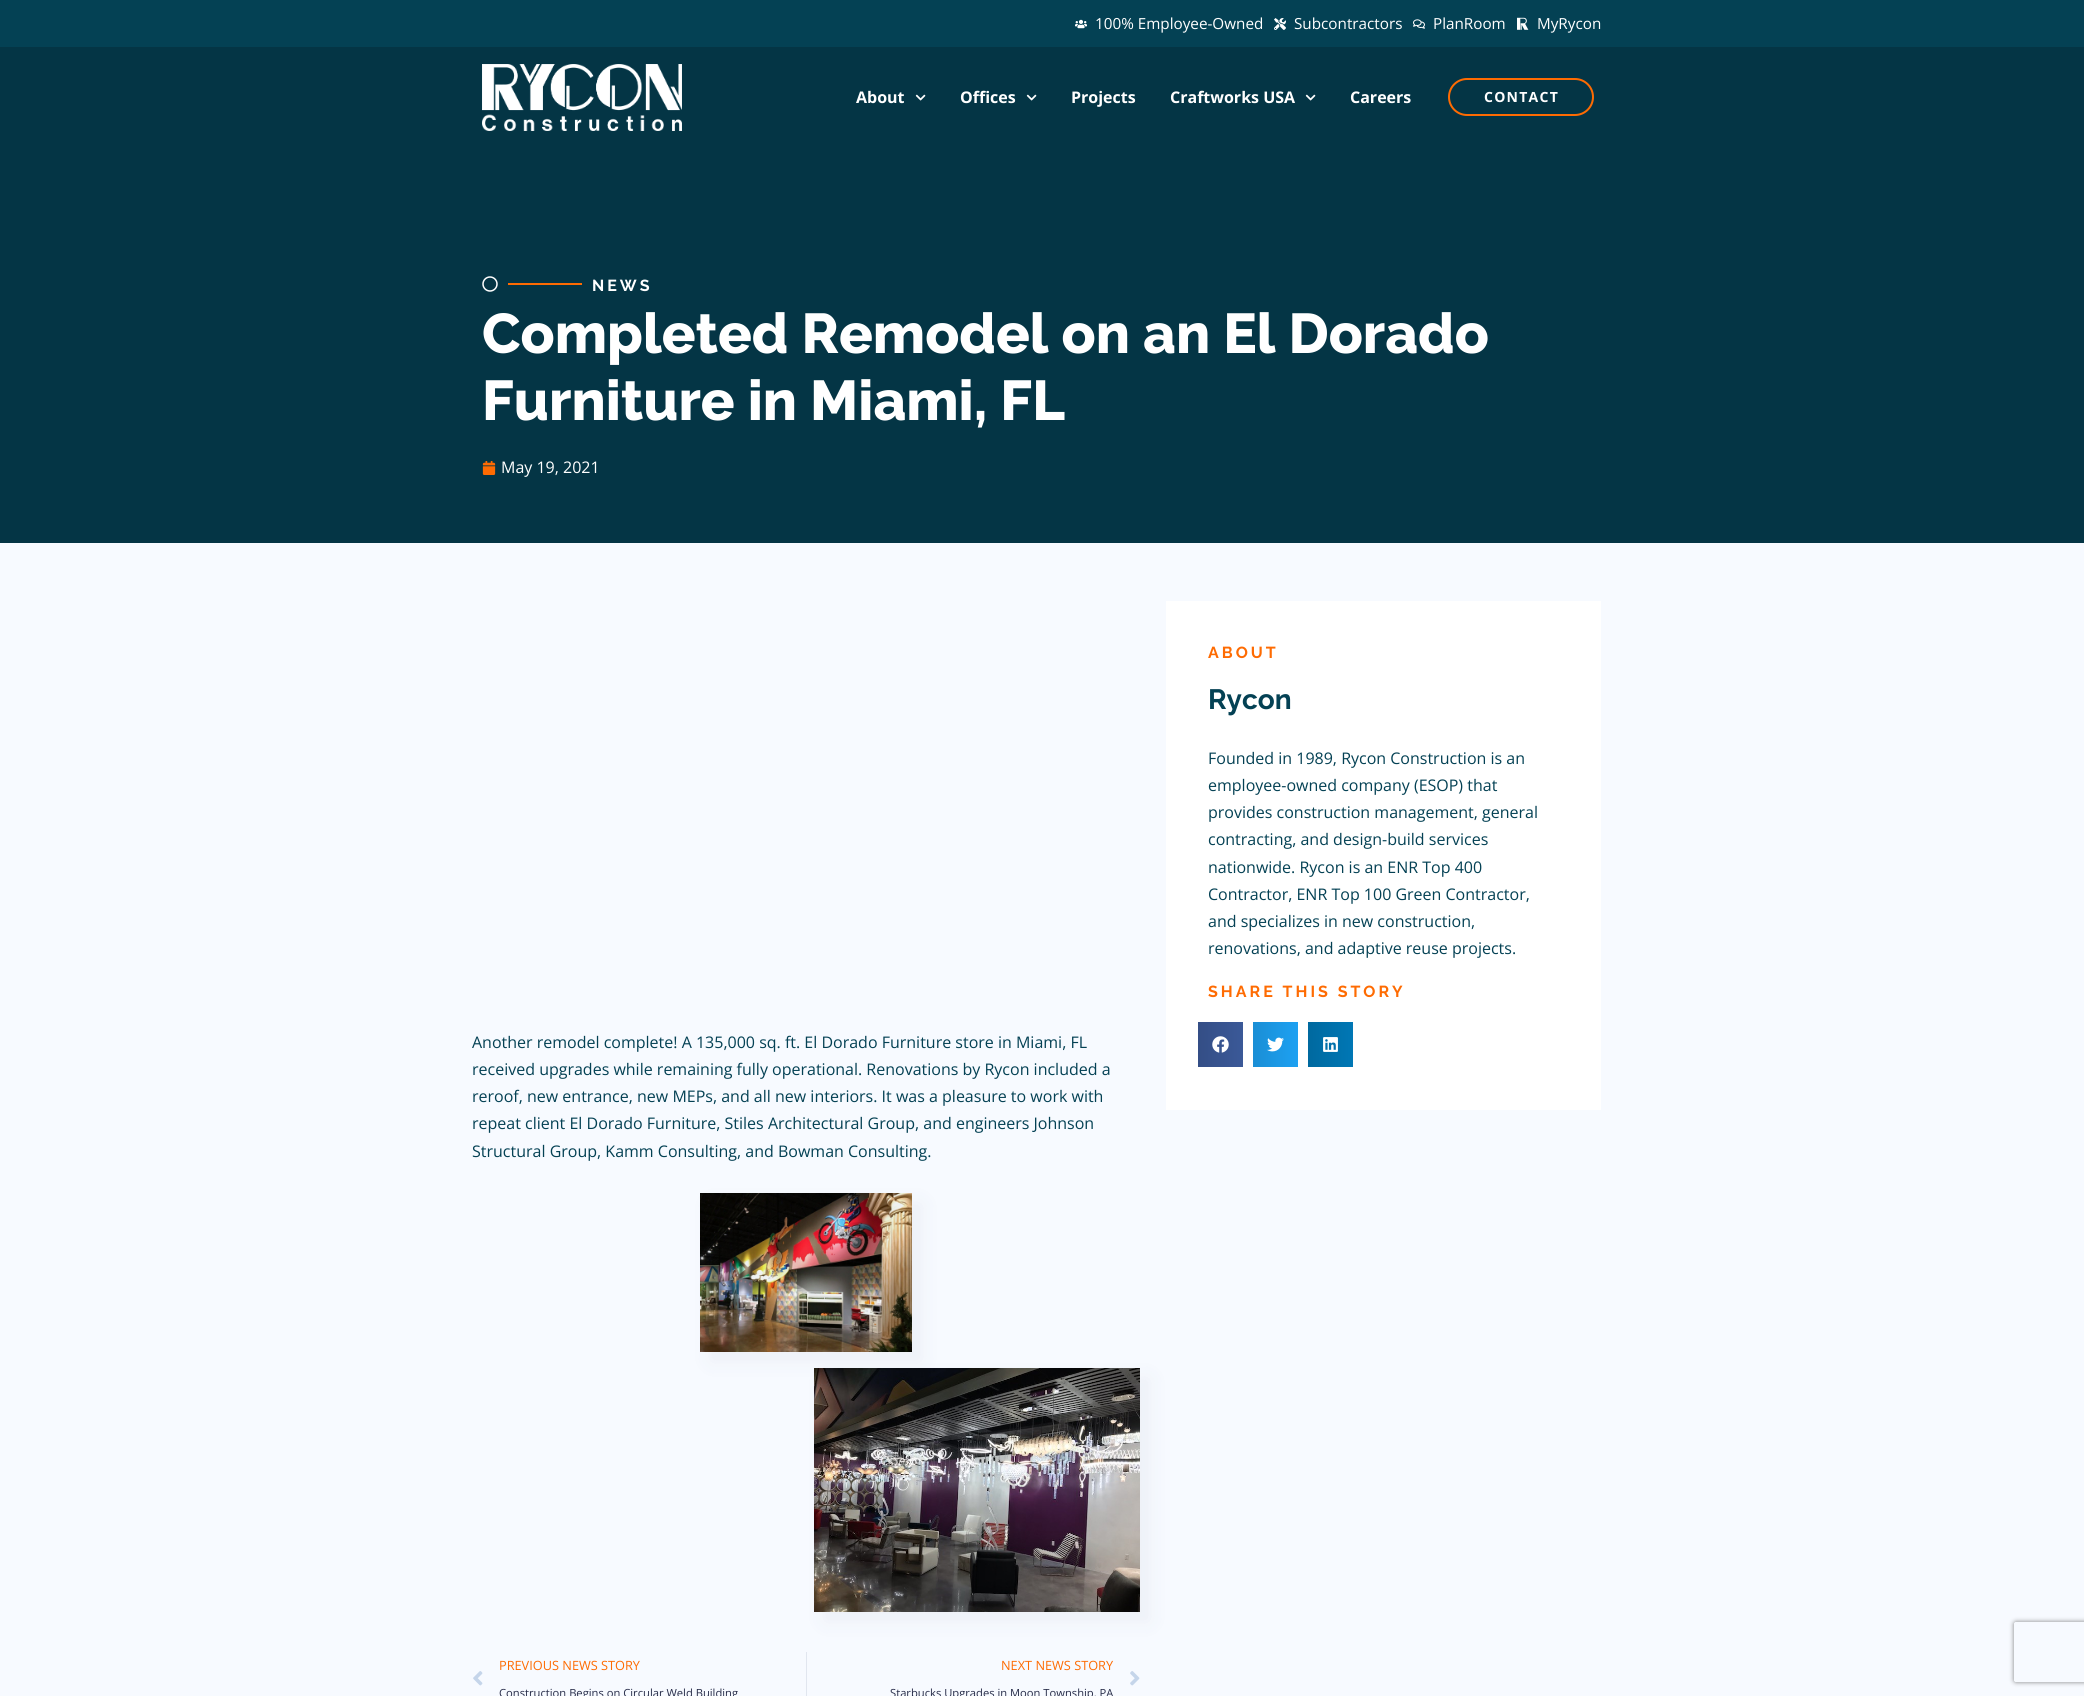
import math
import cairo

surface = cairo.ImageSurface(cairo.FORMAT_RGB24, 2084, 1696)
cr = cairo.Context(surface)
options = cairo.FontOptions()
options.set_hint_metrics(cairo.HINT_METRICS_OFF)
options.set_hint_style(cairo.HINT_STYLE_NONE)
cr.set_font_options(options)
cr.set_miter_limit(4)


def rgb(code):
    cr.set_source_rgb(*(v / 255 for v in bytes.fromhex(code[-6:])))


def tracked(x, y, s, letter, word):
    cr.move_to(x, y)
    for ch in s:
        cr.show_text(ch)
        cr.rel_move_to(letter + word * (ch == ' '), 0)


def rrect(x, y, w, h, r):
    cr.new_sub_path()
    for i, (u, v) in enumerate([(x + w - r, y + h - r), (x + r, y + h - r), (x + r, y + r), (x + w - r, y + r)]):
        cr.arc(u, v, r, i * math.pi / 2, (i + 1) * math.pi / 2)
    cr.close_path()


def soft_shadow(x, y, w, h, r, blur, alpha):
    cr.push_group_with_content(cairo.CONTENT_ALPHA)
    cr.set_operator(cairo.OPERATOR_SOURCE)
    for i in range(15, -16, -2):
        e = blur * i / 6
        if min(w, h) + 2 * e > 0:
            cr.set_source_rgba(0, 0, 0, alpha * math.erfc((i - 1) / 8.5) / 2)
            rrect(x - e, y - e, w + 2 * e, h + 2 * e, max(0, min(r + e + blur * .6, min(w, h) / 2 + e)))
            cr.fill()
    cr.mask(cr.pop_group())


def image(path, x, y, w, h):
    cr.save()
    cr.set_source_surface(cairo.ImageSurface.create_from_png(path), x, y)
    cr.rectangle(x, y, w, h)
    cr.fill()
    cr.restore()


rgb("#044154")
cr.paint()
image("img/1.png", 1075, 19, 12, 10)
image("img/2.png", 1274, 18, 12, 12)
image("img/3.png", 1413, 19, 12, 10)
image("img/4.png", 1517, 17, 12, 13)
rgb("#043545")
cr.rectangle(0, 47, 2084, 496)
cr.fill()
image("img/5.png", 482, 64, 200, 67)
image("img/6.png", 915, 94, 11, 7)
image("img/6.png", 1026, 94, 11, 7)
image("img/6.png", 1305, 94, 11, 7)
rrect(1449, 79, 144, 36, 18)
rgb("#fe6b02")
cr.stroke()
image("img/7.png", 482, 276, 16, 16)
cr.rectangle(508, 283, 74, 2)
cr.fill()
image("img/8.png", 482, 461, 14, 14)
rgb("#f7faff")
cr.rectangle(0, 543, 2084, 1153)
cr.fill()
rgb("#ffffff")
cr.rectangle(1166, 601, 435, 509)
cr.fill()
gradient = cairo.LinearGradient(1198, 1045, 1243, 1045)
gradient.add_color_stop_rgba(0, 0.204, 0.306, 0.525, 1)
gradient.add_color_stop_rgba(1, 0.231, 0.349, 0.596, 1)
cr.set_source(gradient)
cr.rectangle(1198, 1022, 45, 45)
cr.fill()
image("img/9.png", 1212, 1036, 17, 17)
gradient = cairo.LinearGradient(1253, 1045, 1298, 1045)
gradient.add_color_stop_rgba(0, 0.102, 0.557, 0.835, 1)
gradient.add_color_stop_rgba(1, 0.114, 0.631, 0.949, 1)
cr.set_source(gradient)
cr.rectangle(1253, 1022, 45, 45)
cr.fill()
image("img/10.png", 1267, 1037, 17, 15)
gradient = cairo.LinearGradient(1308, 1045, 1353, 1045)
gradient.add_color_stop_rgba(0, 0, 0.412, 0.624, 1)
gradient.add_color_stop_rgba(1, 0, 0.467, 0.71, 1)
cr.set_source(gradient)
cr.rectangle(1308, 1022, 45, 45)
cr.fill()
image("img/11.png", 1323, 1037, 15, 15)
rgb("#272c48")
soft_shadow(710, 1203, 212, 159, 0, 10, 0.05)
image("img/12.png", 700, 1193, 212, 159)
soft_shadow(824, 1378, 326, 244, 0, 10, 0.05)
image("img/13.png", 814, 1368, 326, 244)
image("img/14.png", 473, 1671, 10, 15)
rgb("#e1e6ef")
cr.rectangle(806, 1652, 1, 44)
cr.fill()
image("img/15.png", 1130, 1671, 10, 15)
cr.save()
cr.set_fill_rule(cairo.FILL_RULE_EVEN_ODD)
cr.new_path()
cr.move_to(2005, 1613)
cr.line_to(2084, 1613)
cr.line_to(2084, 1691)
cr.line_to(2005, 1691)
cr.close_path()
cr.move_to(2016, 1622)
cr.line_to(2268, 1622)
cr.curve_to(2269, 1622, 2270, 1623, 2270, 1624)
cr.line_to(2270, 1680)
cr.curve_to(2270, 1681, 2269, 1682, 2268, 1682)
cr.line_to(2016, 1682)
cr.curve_to(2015, 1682, 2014, 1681, 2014, 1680)
cr.line_to(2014, 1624)
cr.curve_to(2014, 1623, 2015, 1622, 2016, 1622)
cr.close_path()
cr.clip()
rgb("#808080")
soft_shadow(2014, 1622, 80, 60, 2, 2.5, 1)
cr.restore()
cr.select_font_face("Open Sans")
cr.set_font_size(15.25)
rgb("#ffffff")
for x, y, s in [
    (1095, 29, "100% Employee-Owned"),
    (1294, 29, "Subcontractors"),
    (1433, 29, "PlanRoom"),
    (1537, 29, "MyRycon"),
]:
    cr.move_to(x, y)
    cr.show_text(s)
cr.select_font_face("Open Sans", cairo.FONT_SLANT_NORMAL, cairo.FONT_WEIGHT_BOLD)
cr.set_font_size(16)
for x, y, s in [
    (856, 103, "About"),
    (960, 103, "Offices"),
    (1071, 103, "Projects"),
    (1170, 103, "Craftworks USA"),
    (1350, 103, "Careers"),
]:
    cr.move_to(x, y)
    cr.show_text(s)
cr.set_font_size(14)
tracked(1484, 102, "CONTACT", 1.25, 0)
cr.select_font_face("Raleway", cairo.FONT_SLANT_NORMAL, cairo.FONT_WEIGHT_BOLD)
cr.set_font_size(16)
tracked(592, 291, "NEWS", 3, 0)
cr.select_font_face("Raleway ExtraBold")
cr.set_font_size(56)
cr.move_to(482, 353)
cr.show_text("Completed Remodel on an El Dorado")
cr.move_to(482, 420)
cr.show_text("Furniture in Miami, FL")
cr.select_font_face("Open Sans")
cr.set_font_size(16)
cr.move_to(501, 473)
cr.show_text("May 19, 2021")
cr.select_font_face("Raleway", cairo.FONT_SLANT_NORMAL, cairo.FONT_WEIGHT_BOLD)
rgb("#fe6b02")
tracked(1208, 658, "ABOUT", 3, 0)
cr.set_font_size(28)
rgb("#044154")
cr.move_to(1208, 709)
cr.show_text("Rycon")
cr.select_font_face("Open Sans")
cr.set_font_size(16)
for x, y, s in [
    (1208, 764, "Founded in 1989, Rycon Construction is an"),
    (1208, 791, "employee-owned company (ESOP) that"),
    (1208, 818, "provides construction management, general"),
    (1208, 845, "contracting, and design-build services"),
    (1208, 873, "nationwide. Rycon is an ENR Top 400"),
    (1208, 900, "Contractor, ENR Top 100 Green Contractor,"),
    (1208, 927, "and specializes in new construction,"),
    (1208, 954, "renovations, and adaptive reuse projects."),
]:
    cr.move_to(x, y)
    cr.show_text(s)
cr.select_font_face("Raleway", cairo.FONT_SLANT_NORMAL, cairo.FONT_WEIGHT_BOLD)
rgb("#fe6b02")
tracked(1208, 997, "SHARE THIS STORY", 3, 0)
cr.select_font_face("Open Sans")
rgb("#044154")
for x, y, s in [
    (472, 1048, "Another remodel complete! A 135,000 sq. ft. El Dorado Furniture store in Miami, FL"),
    (472, 1075, "received upgrades while remaining fully operational. Renovations by Rycon included a"),
    (472, 1102, "reroof, new entrance, new MEPs, and all new interiors. It was a pleasure to work with"),
    (472, 1129, "repeat client El Dorado Furniture, Stiles Architectural Group, and engineers Johnson"),
    (472, 1157, "Structural Group, Kamm Consulting, and Bowman Consulting."),
]:
    cr.move_to(x, y)
    cr.show_text(s)
cr.set_font_size(12.75)
rgb("#fe6b02")
cr.move_to(499, 1670)
cr.show_text("PREVIOUS NEWS STORY")
cr.set_font_size(11.2)
rgb("#272c48")
cr.move_to(499, 1697)
cr.show_text("Construction Begins on Circular Weld Building")
cr.set_font_size(12.75)
rgb("#fe6b02")
cr.move_to(1001, 1670)
cr.show_text("NEXT NEWS STORY")
cr.set_font_size(11.2)
rgb("#272c48")
cr.move_to(890, 1697)
cr.show_text("Starbucks Upgrades in Moon Township, PA")
surface.write_to_png("page.png")
